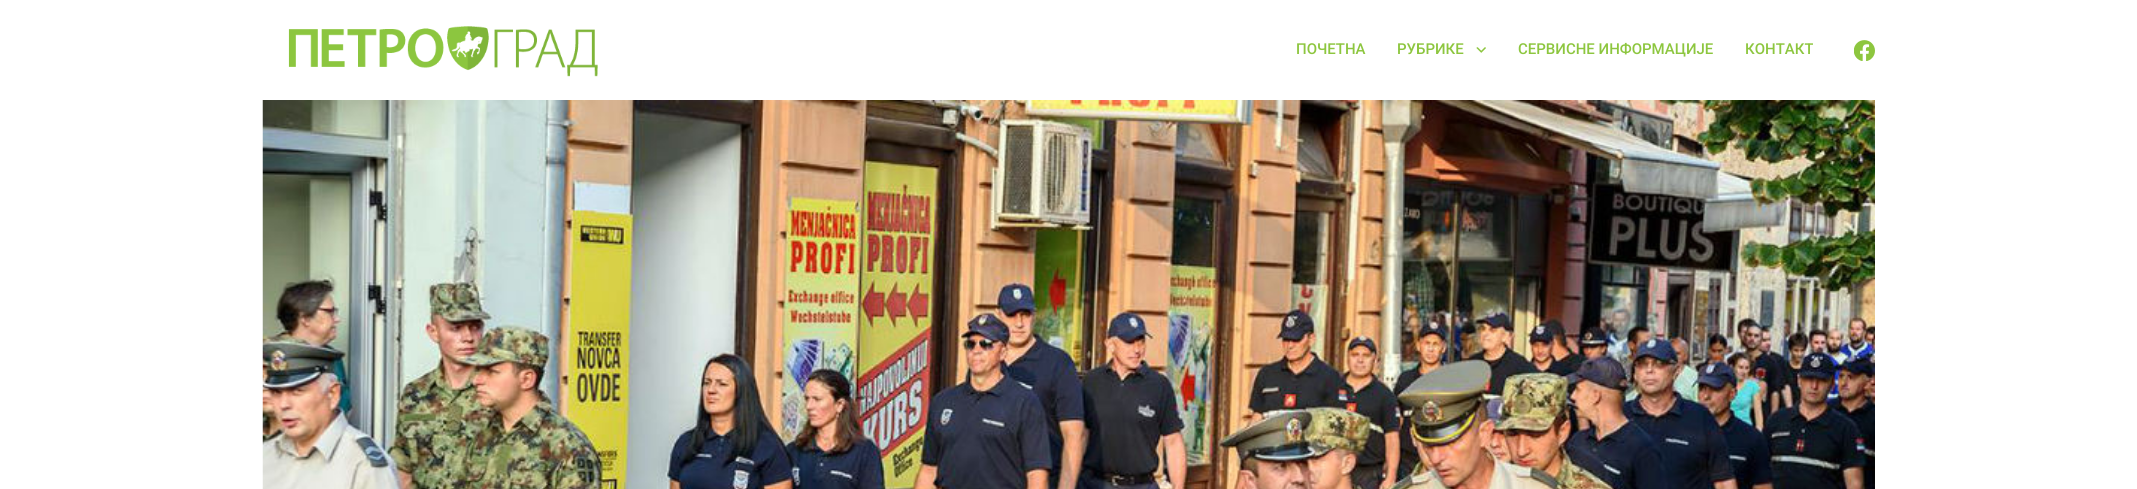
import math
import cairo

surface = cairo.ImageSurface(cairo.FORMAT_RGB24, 2137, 489)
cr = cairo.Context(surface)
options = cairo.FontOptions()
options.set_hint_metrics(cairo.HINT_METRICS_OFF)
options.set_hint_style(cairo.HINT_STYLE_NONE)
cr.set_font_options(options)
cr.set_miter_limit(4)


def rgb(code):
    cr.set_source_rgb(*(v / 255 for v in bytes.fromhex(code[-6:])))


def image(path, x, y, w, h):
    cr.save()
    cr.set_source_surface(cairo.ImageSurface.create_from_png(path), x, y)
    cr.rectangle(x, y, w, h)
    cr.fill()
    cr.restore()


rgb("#ffffff")
cr.paint()
image("img/1.png", 288, 26, 310, 51)
image("img/2.png", 1476, 47, 10, 6)
image("img/3.png", 1854, 40, 21, 21)
image("img/4.png", 262, 100, 1613, 389)
cr.select_font_face("Roboto Medium")
cr.set_font_size(15)
rgb("#8dc63f")
for x, y, s in [
    (1296, 54, "ПОЧЕТНА"),
    (1397, 54, "РУБРИКЕ"),
    (1518, 54, "СЕРВИСНЕ ИНФОРМАЦИЈЕ"),
    (1745, 54, "КОНТАКТ"),
]:
    cr.move_to(x, y)
    cr.show_text(s)
surface.write_to_png("page.png")
